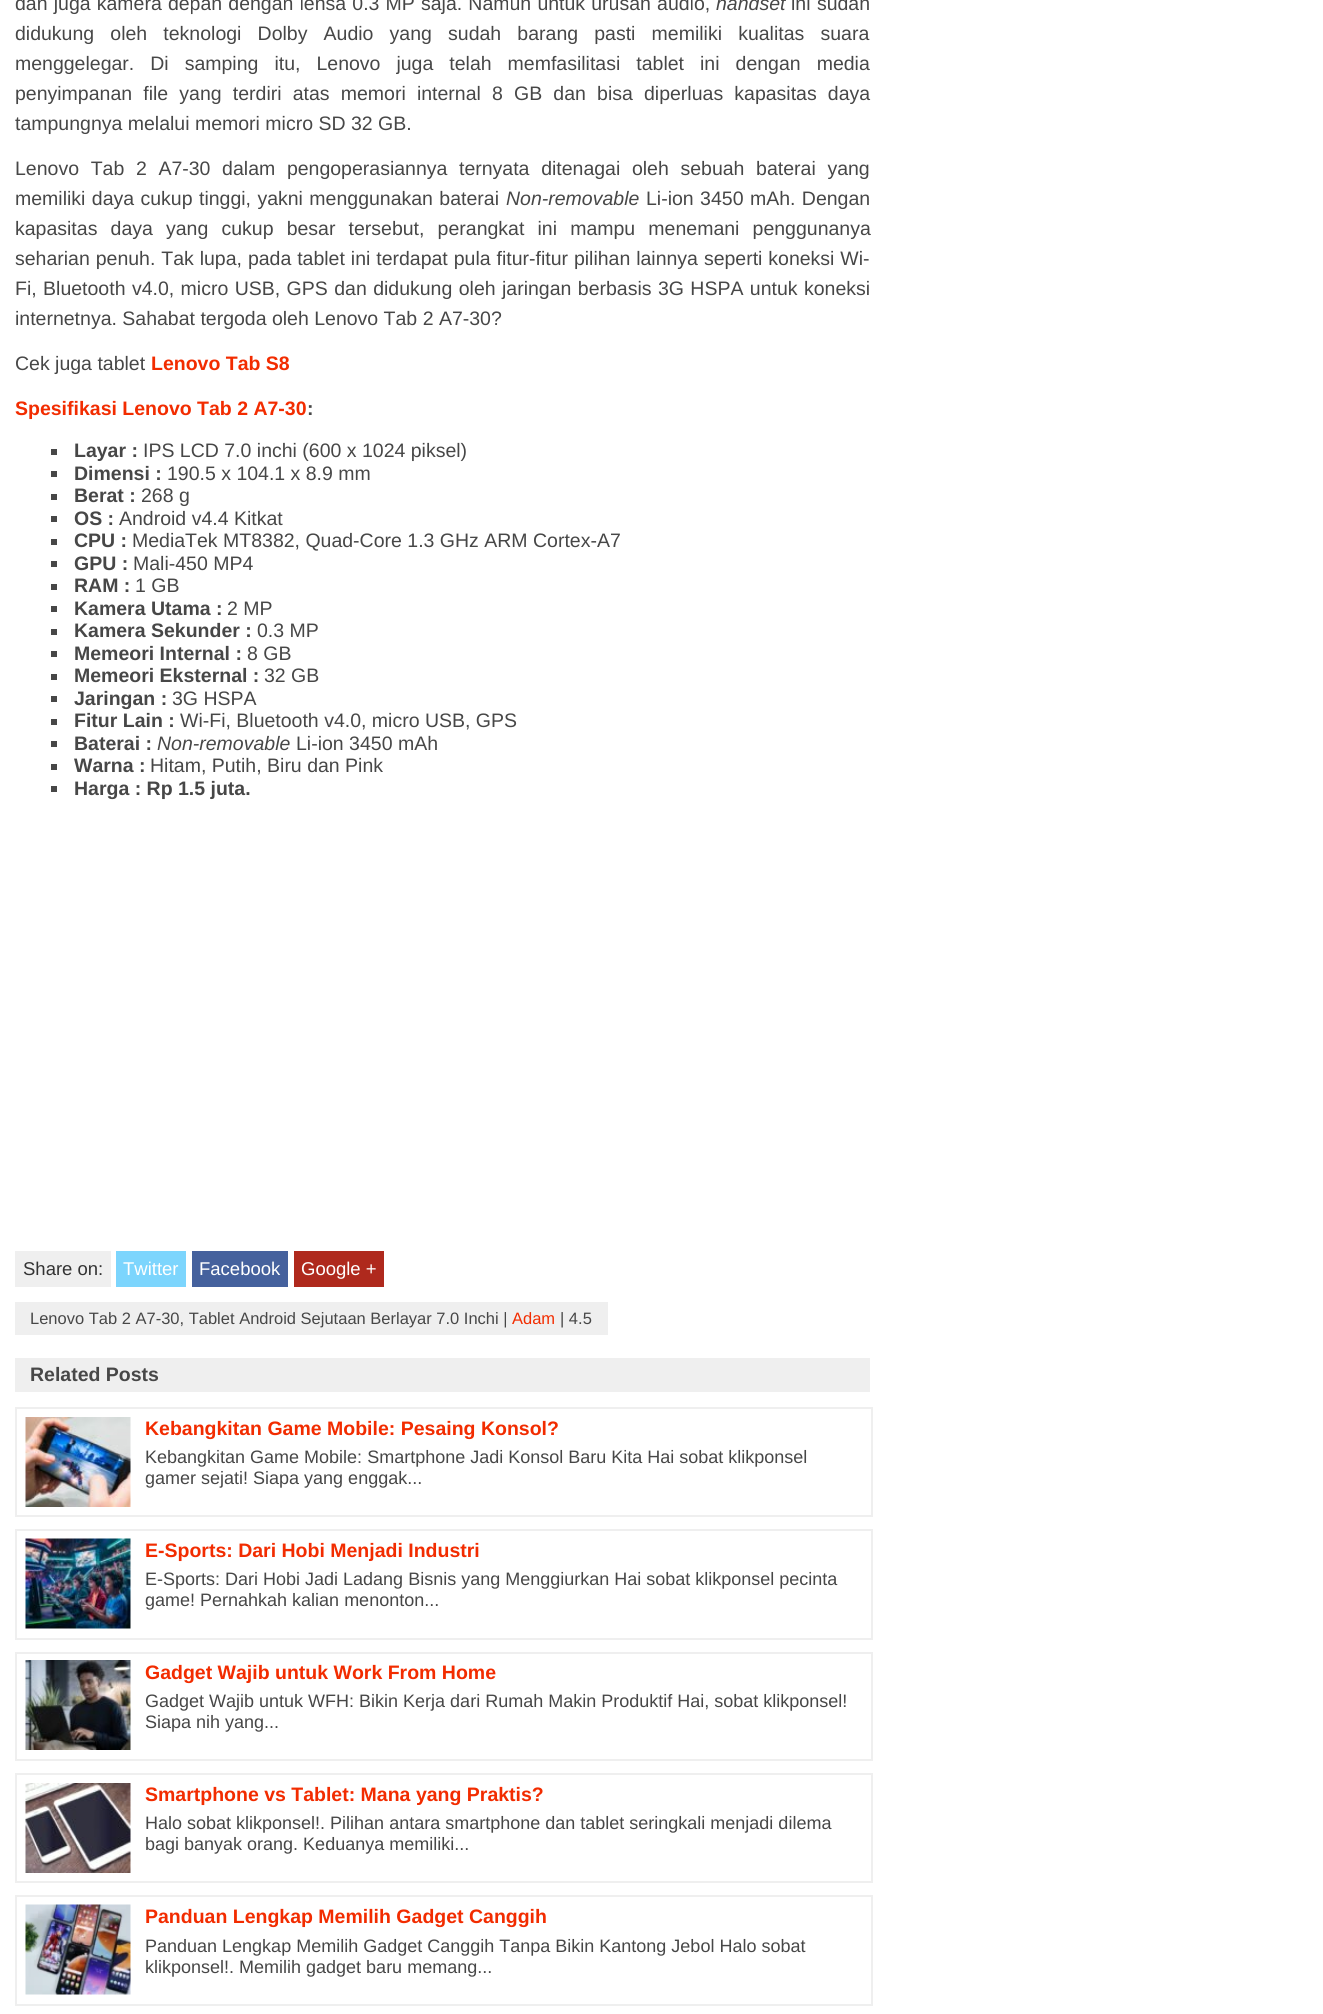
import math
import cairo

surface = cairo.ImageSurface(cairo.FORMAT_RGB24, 1323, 2014)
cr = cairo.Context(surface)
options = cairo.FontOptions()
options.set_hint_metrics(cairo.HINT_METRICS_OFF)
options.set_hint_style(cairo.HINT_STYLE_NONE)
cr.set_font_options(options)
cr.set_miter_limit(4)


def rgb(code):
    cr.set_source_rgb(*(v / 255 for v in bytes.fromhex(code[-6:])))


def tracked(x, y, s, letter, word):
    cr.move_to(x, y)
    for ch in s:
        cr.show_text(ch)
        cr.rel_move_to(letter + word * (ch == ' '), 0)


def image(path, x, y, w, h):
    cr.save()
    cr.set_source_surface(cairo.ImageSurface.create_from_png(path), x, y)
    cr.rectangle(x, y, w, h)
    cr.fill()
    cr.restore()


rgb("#ffffff")
cr.paint()
for x, y, w, h, color in [
    (51, 449, 6, 6, "#474747"),
    (51, 471, 6, 6, "#474747"),
    (51, 494, 6, 6, "#474747"),
    (51, 516, 6, 6, "#474747"),
    (51, 539, 6, 6, "#474747"),
    (51, 561, 6, 6, "#474747"),
    (51, 584, 6, 6, "#474747"),
    (51, 606, 6, 6, "#474747"),
    (51, 629, 6, 6, "#474747"),
    (51, 651, 6, 6, "#474747"),
    (51, 674, 6, 6, "#474747"),
    (51, 696, 6, 6, "#474747"),
    (51, 719, 6, 6, "#474747"),
    (51, 741, 6, 6, "#474747"),
    (51, 764, 6, 6, "#474747"),
    (51, 786, 6, 6, "#474747"),
    (15, 1251, 96, 36, "#efefef"),
    (116, 1251, 70, 36, "#7cd5fd"),
    (192, 1251, 96, 36, "#45619d"),
    (294, 1251, 90, 36, "#af291d"),
    (15, 1302, 593, 33, "#efefef"),
    (15, 1358, 855, 34, "#efefef"),
]:
    rgb(color)
    cr.rectangle(x, y, w, h)
    cr.fill()
cr.rectangle(16, 1408, 856, 108)
cr.stroke()
image("img/1.png", 25, 1417, 106, 90)
cr.rectangle(16, 1530, 856, 109)
cr.stroke()
image("img/2.png", 25, 1538, 106, 91)
cr.rectangle(16, 1653, 856, 107)
cr.stroke()
image("img/3.png", 25, 1660, 106, 90)
cr.rectangle(16, 1774, 856, 108)
cr.stroke()
image("img/4.png", 25, 1783, 106, 90)
cr.rectangle(16, 1896, 856, 109)
cr.stroke()
image("img/5.png", 25, 1904, 106, 91)
cr.select_font_face("Liberation Sans")
cr.set_font_size(19.5)
rgb("#474747")
tracked(15, 10, "dan juga kamera depan dengan lensa 0.3 MP saja. Namun untuk urusan audio,", 0, 0.75)
cr.select_font_face("Liberation Sans", cairo.FONT_SLANT_ITALIC)
cr.move_to(716, 10)
cr.show_text("handset")
cr.select_font_face("Liberation Sans")
tracked(791, 10, "ini sudah", 0, 1)
tracked(15, 40, "didukung oleh teknologi Dolby Audio yang sudah barang pasti memiliki kualitas suara", 0, 10.75)
tracked(15, 70, "menggelegar. Di samping itu, Lenovo juga telah memfasilitasi tablet ini dengan media", 0, 10.6)
tracked(15, 100, "penyimpanan file yang terdiri atas memori internal 8 GB dan bisa diperluas kapasitas daya", 0, 5.75)
cr.move_to(15, 130)
cr.show_text("tampungnya melalui memori micro SD 32 GB.")
tracked(15, 175, "Lenovo Tab 2 A7-30 dalam pengoperasiannya ternyata ditenagai oleh sebuah baterai yang", 0, 6.25)
tracked(15, 205, "memiliki daya cukup tinggi, yakni menggunakan baterai", 0, 1)
cr.select_font_face("Liberation Sans", cairo.FONT_SLANT_ITALIC)
cr.move_to(506, 205)
cr.show_text("Non-removable")
cr.select_font_face("Liberation Sans")
tracked(646, 205, "Li-ion 3450 mAh. Dengan", 0, 1)
tracked(15, 235, "kapasitas daya yang cukup besar tersebut, perangkat ini mampu menemani penggunanya", 0, 7.75)
tracked(15, 265, "seharian penuh. Tak lupa, pada tablet ini terdapat pula fitur-fitur pilihan lainnya seperti koneksi Wi-", 0, 0.5)
tracked(15, 295, "Fi, Bluetooth v4.0, micro USB, GPS dan didukung oleh jaringan berbasis 3G HSPA untuk koneksi", 0, 1)
cr.move_to(15, 325)
cr.show_text("internetnya. Sahabat tergoda oleh Lenovo Tab 2 A7-30?")
cr.move_to(15, 370)
cr.show_text("Cek juga tablet")
cr.select_font_face("Liberation Sans", cairo.FONT_SLANT_NORMAL, cairo.FONT_WEIGHT_BOLD)
rgb("#f22c00")
cr.move_to(151, 370)
cr.show_text("Lenovo Tab S8")
cr.move_to(15, 415)
cr.show_text("Spesifikasi Lenovo Tab 2 A7-30")
rgb("#474747")
cr.move_to(307, 415)
cr.show_text(":")
cr.move_to(74, 457)
cr.show_text("Layar :")
cr.select_font_face("Liberation Sans")
cr.move_to(143, 457)
cr.show_text("IPS LCD 7.0 inchi (600 x 1024 piksel)")
cr.select_font_face("Liberation Sans", cairo.FONT_SLANT_NORMAL, cairo.FONT_WEIGHT_BOLD)
cr.move_to(74, 480)
cr.show_text("Dimensi :")
cr.select_font_face("Liberation Sans")
cr.move_to(167, 480)
cr.show_text("190.5 x 104.1 x 8.9 mm")
cr.select_font_face("Liberation Sans", cairo.FONT_SLANT_NORMAL, cairo.FONT_WEIGHT_BOLD)
cr.move_to(74, 502)
cr.show_text("Berat :")
cr.select_font_face("Liberation Sans")
cr.move_to(141, 502)
cr.show_text("268 g")
cr.select_font_face("Liberation Sans", cairo.FONT_SLANT_NORMAL, cairo.FONT_WEIGHT_BOLD)
cr.move_to(74, 525)
cr.show_text("OS :")
cr.select_font_face("Liberation Sans")
cr.move_to(119, 525)
cr.show_text("Android v4.4 Kitkat")
cr.select_font_face("Liberation Sans", cairo.FONT_SLANT_NORMAL, cairo.FONT_WEIGHT_BOLD)
cr.move_to(74, 547)
cr.show_text("CPU :")
cr.select_font_face("Liberation Sans")
cr.move_to(132, 547)
cr.show_text("MediaTek MT8382, Quad-Core 1.3 GHz ARM Cortex-A7")
cr.select_font_face("Liberation Sans", cairo.FONT_SLANT_NORMAL, cairo.FONT_WEIGHT_BOLD)
cr.move_to(74, 570)
cr.show_text("GPU :")
cr.select_font_face("Liberation Sans")
cr.move_to(133, 570)
cr.show_text("Mali-450 MP4")
cr.select_font_face("Liberation Sans", cairo.FONT_SLANT_NORMAL, cairo.FONT_WEIGHT_BOLD)
cr.move_to(74, 592)
cr.show_text("RAM :")
cr.select_font_face("Liberation Sans")
cr.move_to(135, 592)
cr.show_text("1 GB")
cr.select_font_face("Liberation Sans", cairo.FONT_SLANT_NORMAL, cairo.FONT_WEIGHT_BOLD)
cr.move_to(74, 615)
cr.show_text("Kamera Utama :")
cr.select_font_face("Liberation Sans")
cr.move_to(227, 615)
cr.show_text("2 MP")
cr.select_font_face("Liberation Sans", cairo.FONT_SLANT_NORMAL, cairo.FONT_WEIGHT_BOLD)
cr.move_to(74, 637)
cr.show_text("Kamera Sekunder :")
cr.select_font_face("Liberation Sans")
cr.move_to(257, 637)
cr.show_text("0.3 MP")
cr.select_font_face("Liberation Sans", cairo.FONT_SLANT_NORMAL, cairo.FONT_WEIGHT_BOLD)
cr.move_to(74, 660)
cr.show_text("Memeori Internal :")
cr.select_font_face("Liberation Sans")
cr.move_to(247, 660)
cr.show_text("8 GB")
cr.select_font_face("Liberation Sans", cairo.FONT_SLANT_NORMAL, cairo.FONT_WEIGHT_BOLD)
cr.move_to(74, 682)
cr.show_text("Memeori Eksternal :")
cr.select_font_face("Liberation Sans")
cr.move_to(264, 682)
cr.show_text("32 GB")
cr.select_font_face("Liberation Sans", cairo.FONT_SLANT_NORMAL, cairo.FONT_WEIGHT_BOLD)
cr.move_to(74, 705)
cr.show_text("Jaringan :")
cr.select_font_face("Liberation Sans")
cr.move_to(172, 705)
cr.show_text("3G HSPA")
cr.select_font_face("Liberation Sans", cairo.FONT_SLANT_NORMAL, cairo.FONT_WEIGHT_BOLD)
cr.move_to(74, 727)
cr.show_text("Fitur Lain :")
cr.select_font_face("Liberation Sans")
cr.move_to(180, 727)
cr.show_text("Wi-Fi, Bluetooth v4.0, micro USB, GPS")
cr.select_font_face("Liberation Sans", cairo.FONT_SLANT_NORMAL, cairo.FONT_WEIGHT_BOLD)
cr.move_to(74, 750)
cr.show_text("Baterai :")
cr.select_font_face("Liberation Sans", cairo.FONT_SLANT_ITALIC)
cr.move_to(157, 750)
cr.show_text("Non-removable")
cr.select_font_face("Liberation Sans")
cr.move_to(296, 750)
cr.show_text("Li-ion 3450 mAh")
cr.select_font_face("Liberation Sans", cairo.FONT_SLANT_NORMAL, cairo.FONT_WEIGHT_BOLD)
cr.move_to(74, 772)
cr.show_text("Warna :")
cr.select_font_face("Liberation Sans")
cr.move_to(150, 772)
cr.show_text("Hitam, Putih, Biru dan Pink")
cr.select_font_face("Liberation Sans", cairo.FONT_SLANT_NORMAL, cairo.FONT_WEIGHT_BOLD)
cr.move_to(74, 795)
cr.show_text("Harga : Rp 1.5 juta.")
cr.select_font_face("Liberation Sans")
cr.set_font_size(18.5)
rgb("#333333")
cr.move_to(23, 1275)
cr.show_text("Share on:")
rgb("#ffffff")
for x, y, s in [
    (123, 1275, "Twitter"),
    (199, 1275, "Facebook"),
    (301, 1275, "Google +"),
]:
    cr.move_to(x, y)
    cr.show_text(s)
cr.set_font_size(16.5)
rgb("#474747")
cr.move_to(30, 1324)
cr.show_text("Lenovo Tab 2 A7-30, Tablet Android Sejutaan Berlayar 7.0 Inchi |")
rgb("#f22c00")
cr.move_to(512, 1324)
cr.show_text("Adam")
rgb("#474747")
cr.move_to(560, 1324)
cr.show_text("| 4.5")
cr.select_font_face("Liberation Sans", cairo.FONT_SLANT_NORMAL, cairo.FONT_WEIGHT_BOLD)
cr.set_font_size(19.5)
cr.move_to(30, 1381)
cr.show_text("Related Posts")
rgb("#f22c00")
cr.move_to(145, 1435)
cr.show_text("Kebangkitan Game Mobile: Pesaing Konsol?")
cr.select_font_face("Liberation Sans")
cr.set_font_size(18)
rgb("#474747")
cr.move_to(145, 1463)
cr.show_text("Kebangkitan Game Mobile: Smartphone Jadi Konsol Baru Kita Hai sobat klikponsel")
cr.move_to(145, 1484)
cr.show_text("gamer sejati! Siapa yang enggak...")
cr.select_font_face("Liberation Sans", cairo.FONT_SLANT_NORMAL, cairo.FONT_WEIGHT_BOLD)
cr.set_font_size(19.5)
rgb("#f22c00")
cr.move_to(145, 1557)
cr.show_text("E-Sports: Dari Hobi Menjadi Industri")
cr.select_font_face("Liberation Sans")
cr.set_font_size(18)
rgb("#474747")
cr.move_to(145, 1585)
cr.show_text("E-Sports: Dari Hobi Jadi Ladang Bisnis yang Menggiurkan Hai sobat klikponsel pecinta")
cr.move_to(145, 1606)
cr.show_text("game! Pernahkah kalian menonton...")
cr.select_font_face("Liberation Sans", cairo.FONT_SLANT_NORMAL, cairo.FONT_WEIGHT_BOLD)
cr.set_font_size(19.5)
rgb("#f22c00")
cr.move_to(145, 1679)
cr.show_text("Gadget Wajib untuk Work From Home")
cr.select_font_face("Liberation Sans")
cr.set_font_size(18)
rgb("#474747")
cr.move_to(145, 1707)
cr.show_text("Gadget Wajib untuk WFH: Bikin Kerja dari Rumah Makin Produktif Hai, sobat klikponsel!")
cr.move_to(145, 1728)
cr.show_text("Siapa nih yang...")
cr.select_font_face("Liberation Sans", cairo.FONT_SLANT_NORMAL, cairo.FONT_WEIGHT_BOLD)
cr.set_font_size(19.5)
rgb("#f22c00")
cr.move_to(145, 1801)
cr.show_text("Smartphone vs Tablet: Mana yang Praktis?")
cr.select_font_face("Liberation Sans")
cr.set_font_size(18)
rgb("#474747")
cr.move_to(145, 1829)
cr.show_text("Halo sobat klikponsel!. Pilihan antara smartphone dan tablet seringkali menjadi dilema")
cr.move_to(145, 1850)
cr.show_text("bagi banyak orang. Keduanya memiliki...")
cr.select_font_face("Liberation Sans", cairo.FONT_SLANT_NORMAL, cairo.FONT_WEIGHT_BOLD)
cr.set_font_size(19.5)
rgb("#f22c00")
cr.move_to(145, 1923)
cr.show_text("Panduan Lengkap Memilih Gadget Canggih")
cr.select_font_face("Liberation Sans")
cr.set_font_size(18)
rgb("#474747")
cr.move_to(145, 1952)
cr.show_text("Panduan Lengkap Memilih Gadget Canggih Tanpa Bikin Kantong Jebol Halo sobat")
cr.move_to(145, 1973)
cr.show_text("klikponsel!. Memilih gadget baru memang...")
surface.write_to_png("page.png")
